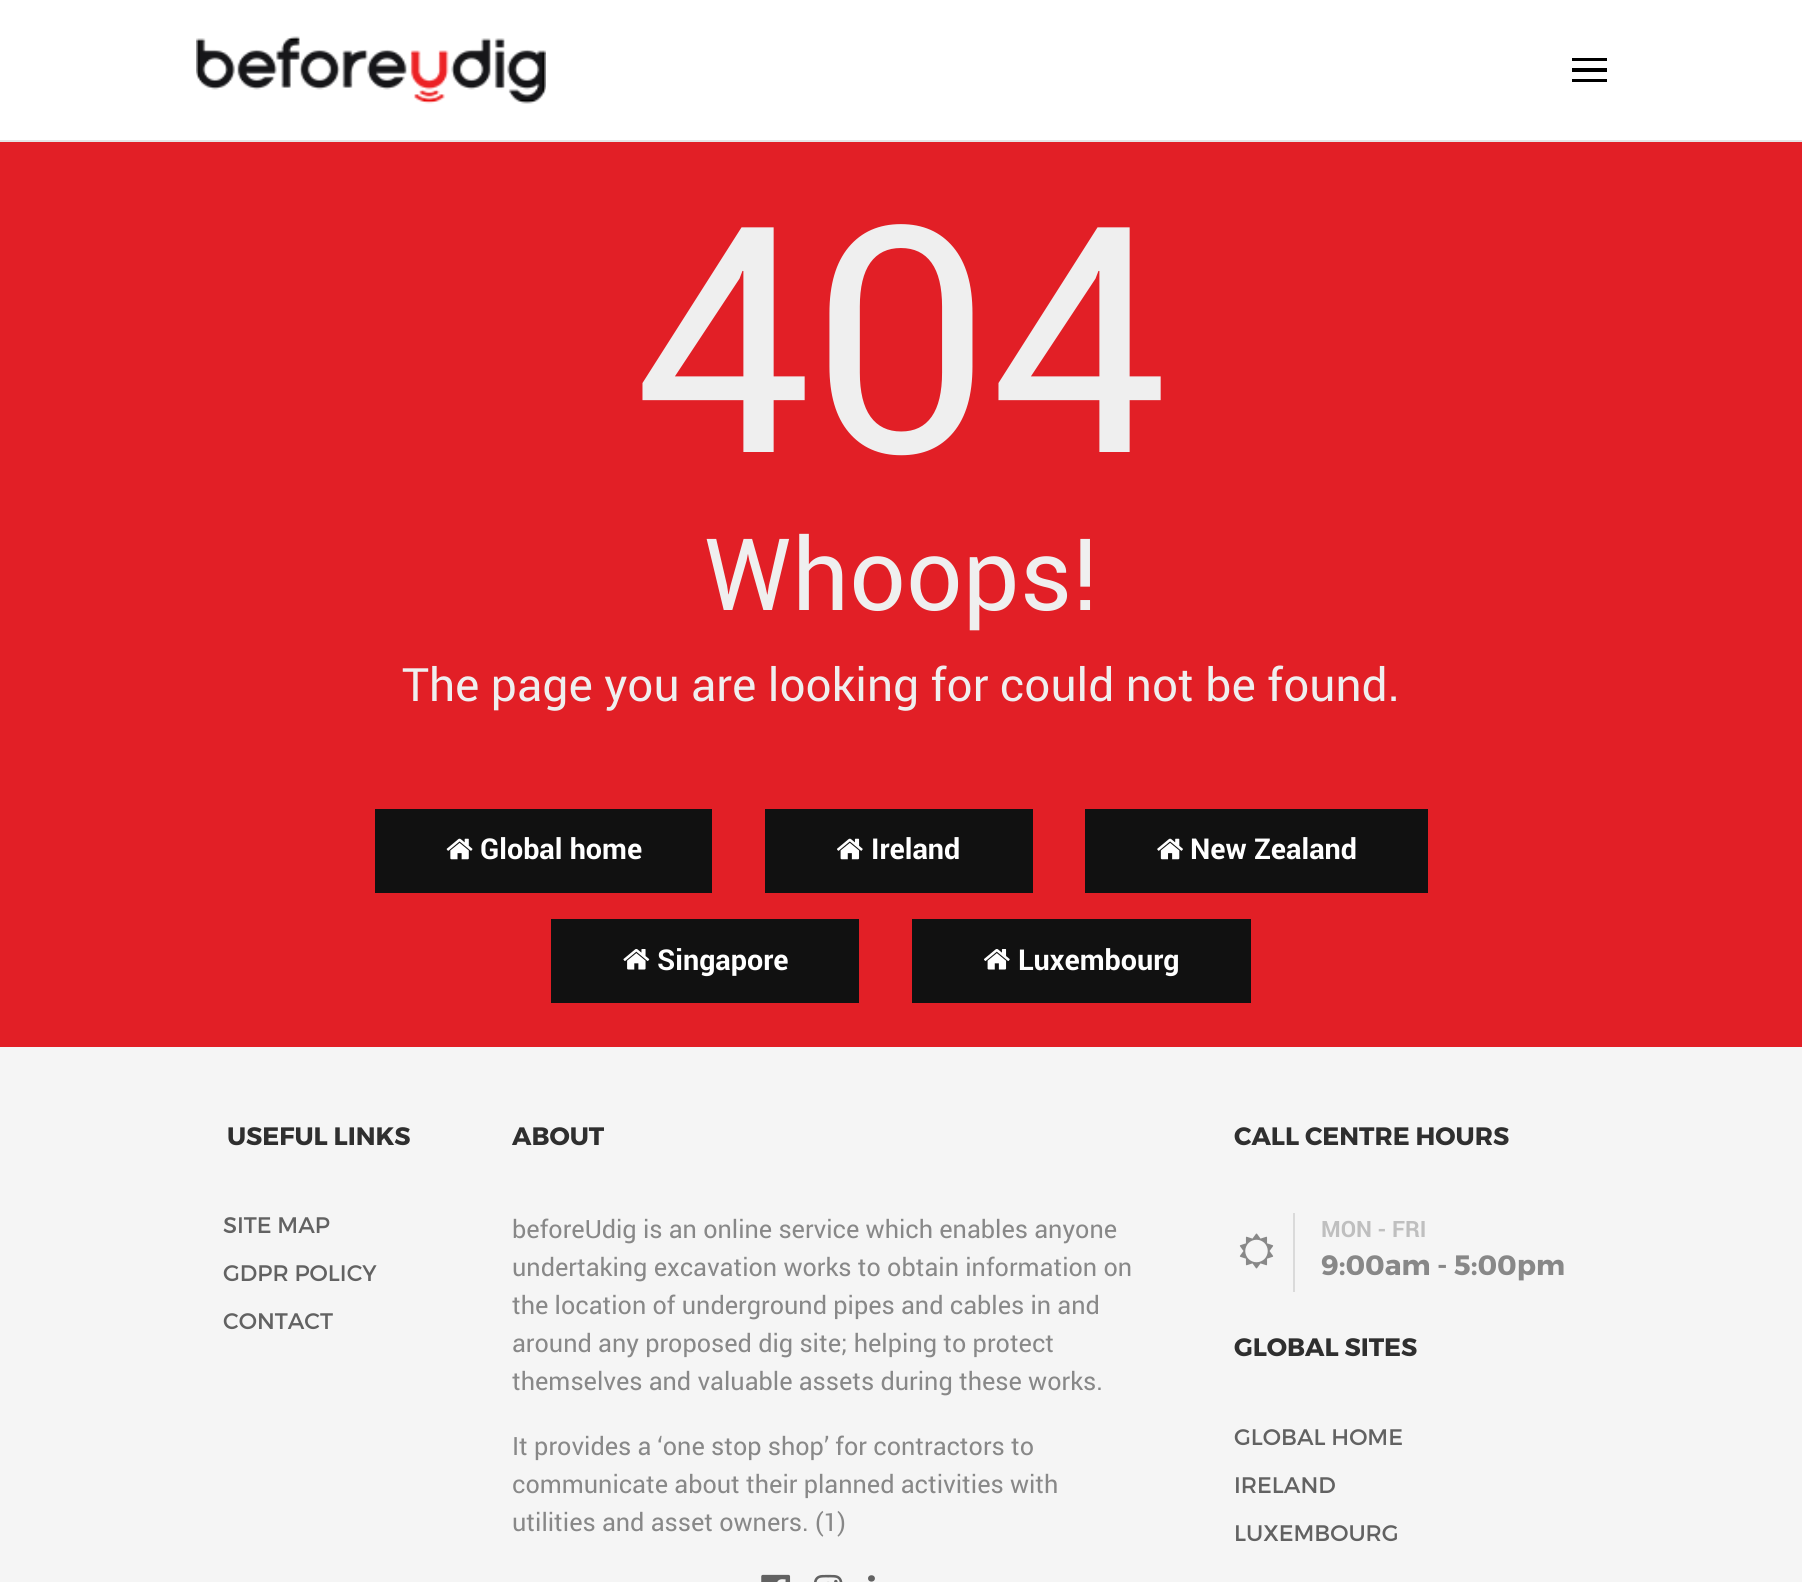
import math
import cairo

surface = cairo.ImageSurface(cairo.FORMAT_RGB24, 1802, 1582)
cr = cairo.Context(surface)
options = cairo.FontOptions()
options.set_hint_metrics(cairo.HINT_METRICS_OFF)
options.set_hint_style(cairo.HINT_STYLE_NONE)
cr.set_font_options(options)
cr.set_miter_limit(4)


def rgb(code):
    cr.set_source_rgb(*(v / 255 for v in bytes.fromhex(code[-6:])))


def image(path, x, y, w, h):
    cr.save()
    cr.set_source_surface(cairo.ImageSurface.create_from_png(path), x, y)
    cr.rectangle(x, y, w, h)
    cr.fill()
    cr.restore()


rgb("#ffffff")
cr.paint()
rgb("#e5e5e5")
cr.rectangle(0, 140, 1802, 2)
cr.fill()
image("img/1.png", 196, 36, 350, 68)
for x, y, w, h, color in [
    (1572, 58, 35, 3, "#000000"),
    (1572, 68, 35, 4, "#000000"),
    (1572, 79, 35, 3, "#000000"),
    (0, 142, 1802, 905, "#e21f26"),
    (375, 809, 337, 84, "#111111"),
]:
    rgb(color)
    cr.rectangle(x, y, w, h)
    cr.fill()
image("img/2.png", 446, 838, 27, 22)
cr.rectangle(765, 809, 268, 84)
cr.fill()
image("img/3.png", 837, 838, 26, 22)
cr.rectangle(1085, 809, 343, 84)
cr.fill()
image("img/4.png", 1157, 838, 26, 22)
cr.rectangle(551, 919, 308, 84)
cr.fill()
image("img/5.png", 623, 949, 27, 21)
cr.rectangle(912, 919, 339, 84)
cr.fill()
image("img/6.png", 984, 949, 26, 21)
rgb("#f5f5f5")
cr.rectangle(0, 1047, 1802, 535)
cr.fill()
image("img/7.png", 761, 1574, 30, 8)
image("img/8.png", 814, 1574, 29, 8)
image("img/9.png", 868, 1575, 7, 7)
rgb("#dadada")
cr.rectangle(1293, 1213, 2, 79)
cr.fill()
image("img/10.png", 1239, 1233, 35, 36)
cr.select_font_face("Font")
cr.set_font_size(316)
rgb("#efefef")
cr.move_to(634, 452)
cr.show_text("404")
cr.set_font_size(100)
cr.move_to(704, 610)
cr.show_text("Whoops!")
cr.set_font_size(46)
cr.move_to(402, 701)
cr.show_text("The page you are looking for could not be found.")
cr.select_font_face("Font", cairo.FONT_SLANT_NORMAL, cairo.FONT_WEIGHT_BOLD)
cr.set_font_size(28.75)
rgb("#ffffff")
for x, y, s in [
    (480, 859, "Global home"),
    (871, 859, "Ireland"),
    (1190, 859, "New Zealand"),
    (657, 970, "Singapore"),
    (1018, 970, "Luxembourg"),
]:
    cr.move_to(x, y)
    cr.show_text(s)
cr.select_font_face("Montserrat", cairo.FONT_SLANT_NORMAL, cairo.FONT_WEIGHT_BOLD)
cr.set_font_size(25.2)
rgb("#2f2f2f")
cr.move_to(227, 1145)
cr.show_text("USEFUL LINKS")
cr.select_font_face("Montserrat")
cr.set_font_size(22.5)
rgb("#626262")
for x, y, s in [
    (223, 1233, "SITE MAP"),
    (223, 1281, "GDPR POLICY"),
    (223, 1329, "CONTACT"),
]:
    cr.move_to(x, y)
    cr.show_text(s)
cr.select_font_face("Montserrat", cairo.FONT_SLANT_NORMAL, cairo.FONT_WEIGHT_BOLD)
cr.set_font_size(25.2)
rgb("#2f2f2f")
cr.move_to(512, 1145)
cr.show_text("ABOUT")
cr.select_font_face("Font")
rgb("#888888")
for x, y, s in [
    (512, 1238, "beforeUdig is an online service which enables anyone"),
    (512, 1276, "undertaking excavation works to obtain information on"),
    (512, 1314, "the location of underground pipes and cables in and"),
    (512, 1352, "around any proposed dig site; helping to protect"),
    (512, 1390, "themselves and valuable assets during these works."),
    (512, 1455, "It provides a ‘one stop shop’ for contractors to"),
    (512, 1493, "communicate about their planned activities with"),
    (512, 1531, "utilities and asset owners. (1)"),
]:
    cr.move_to(x, y)
    cr.show_text(s)
cr.select_font_face("Montserrat", cairo.FONT_SLANT_NORMAL, cairo.FONT_WEIGHT_BOLD)
rgb("#2f2f2f")
cr.move_to(1234, 1145)
cr.show_text("CALL CENTRE HOURS")
cr.select_font_face("Font", cairo.FONT_SLANT_NORMAL, cairo.FONT_WEIGHT_BOLD)
cr.set_font_size(22.5)
rgb("#bfbfbf")
cr.move_to(1321, 1237)
cr.show_text("MON - FRI")
cr.select_font_face("Montserrat", cairo.FONT_SLANT_NORMAL, cairo.FONT_WEIGHT_BOLD)
cr.set_font_size(28)
rgb("#888888")
cr.move_to(1321, 1275)
cr.show_text("9:00am - 5:00pm")
cr.set_font_size(25.2)
rgb("#2f2f2f")
cr.move_to(1234, 1356)
cr.show_text("GLOBAL SITES")
cr.select_font_face("Montserrat")
cr.set_font_size(22.5)
rgb("#626262")
for x, y, s in [
    (1234, 1445, "GLOBAL HOME"),
    (1234, 1493, "IRELAND"),
    (1234, 1541, "LUXEMBOURG"),
]:
    cr.move_to(x, y)
    cr.show_text(s)
surface.write_to_png("page.png")
